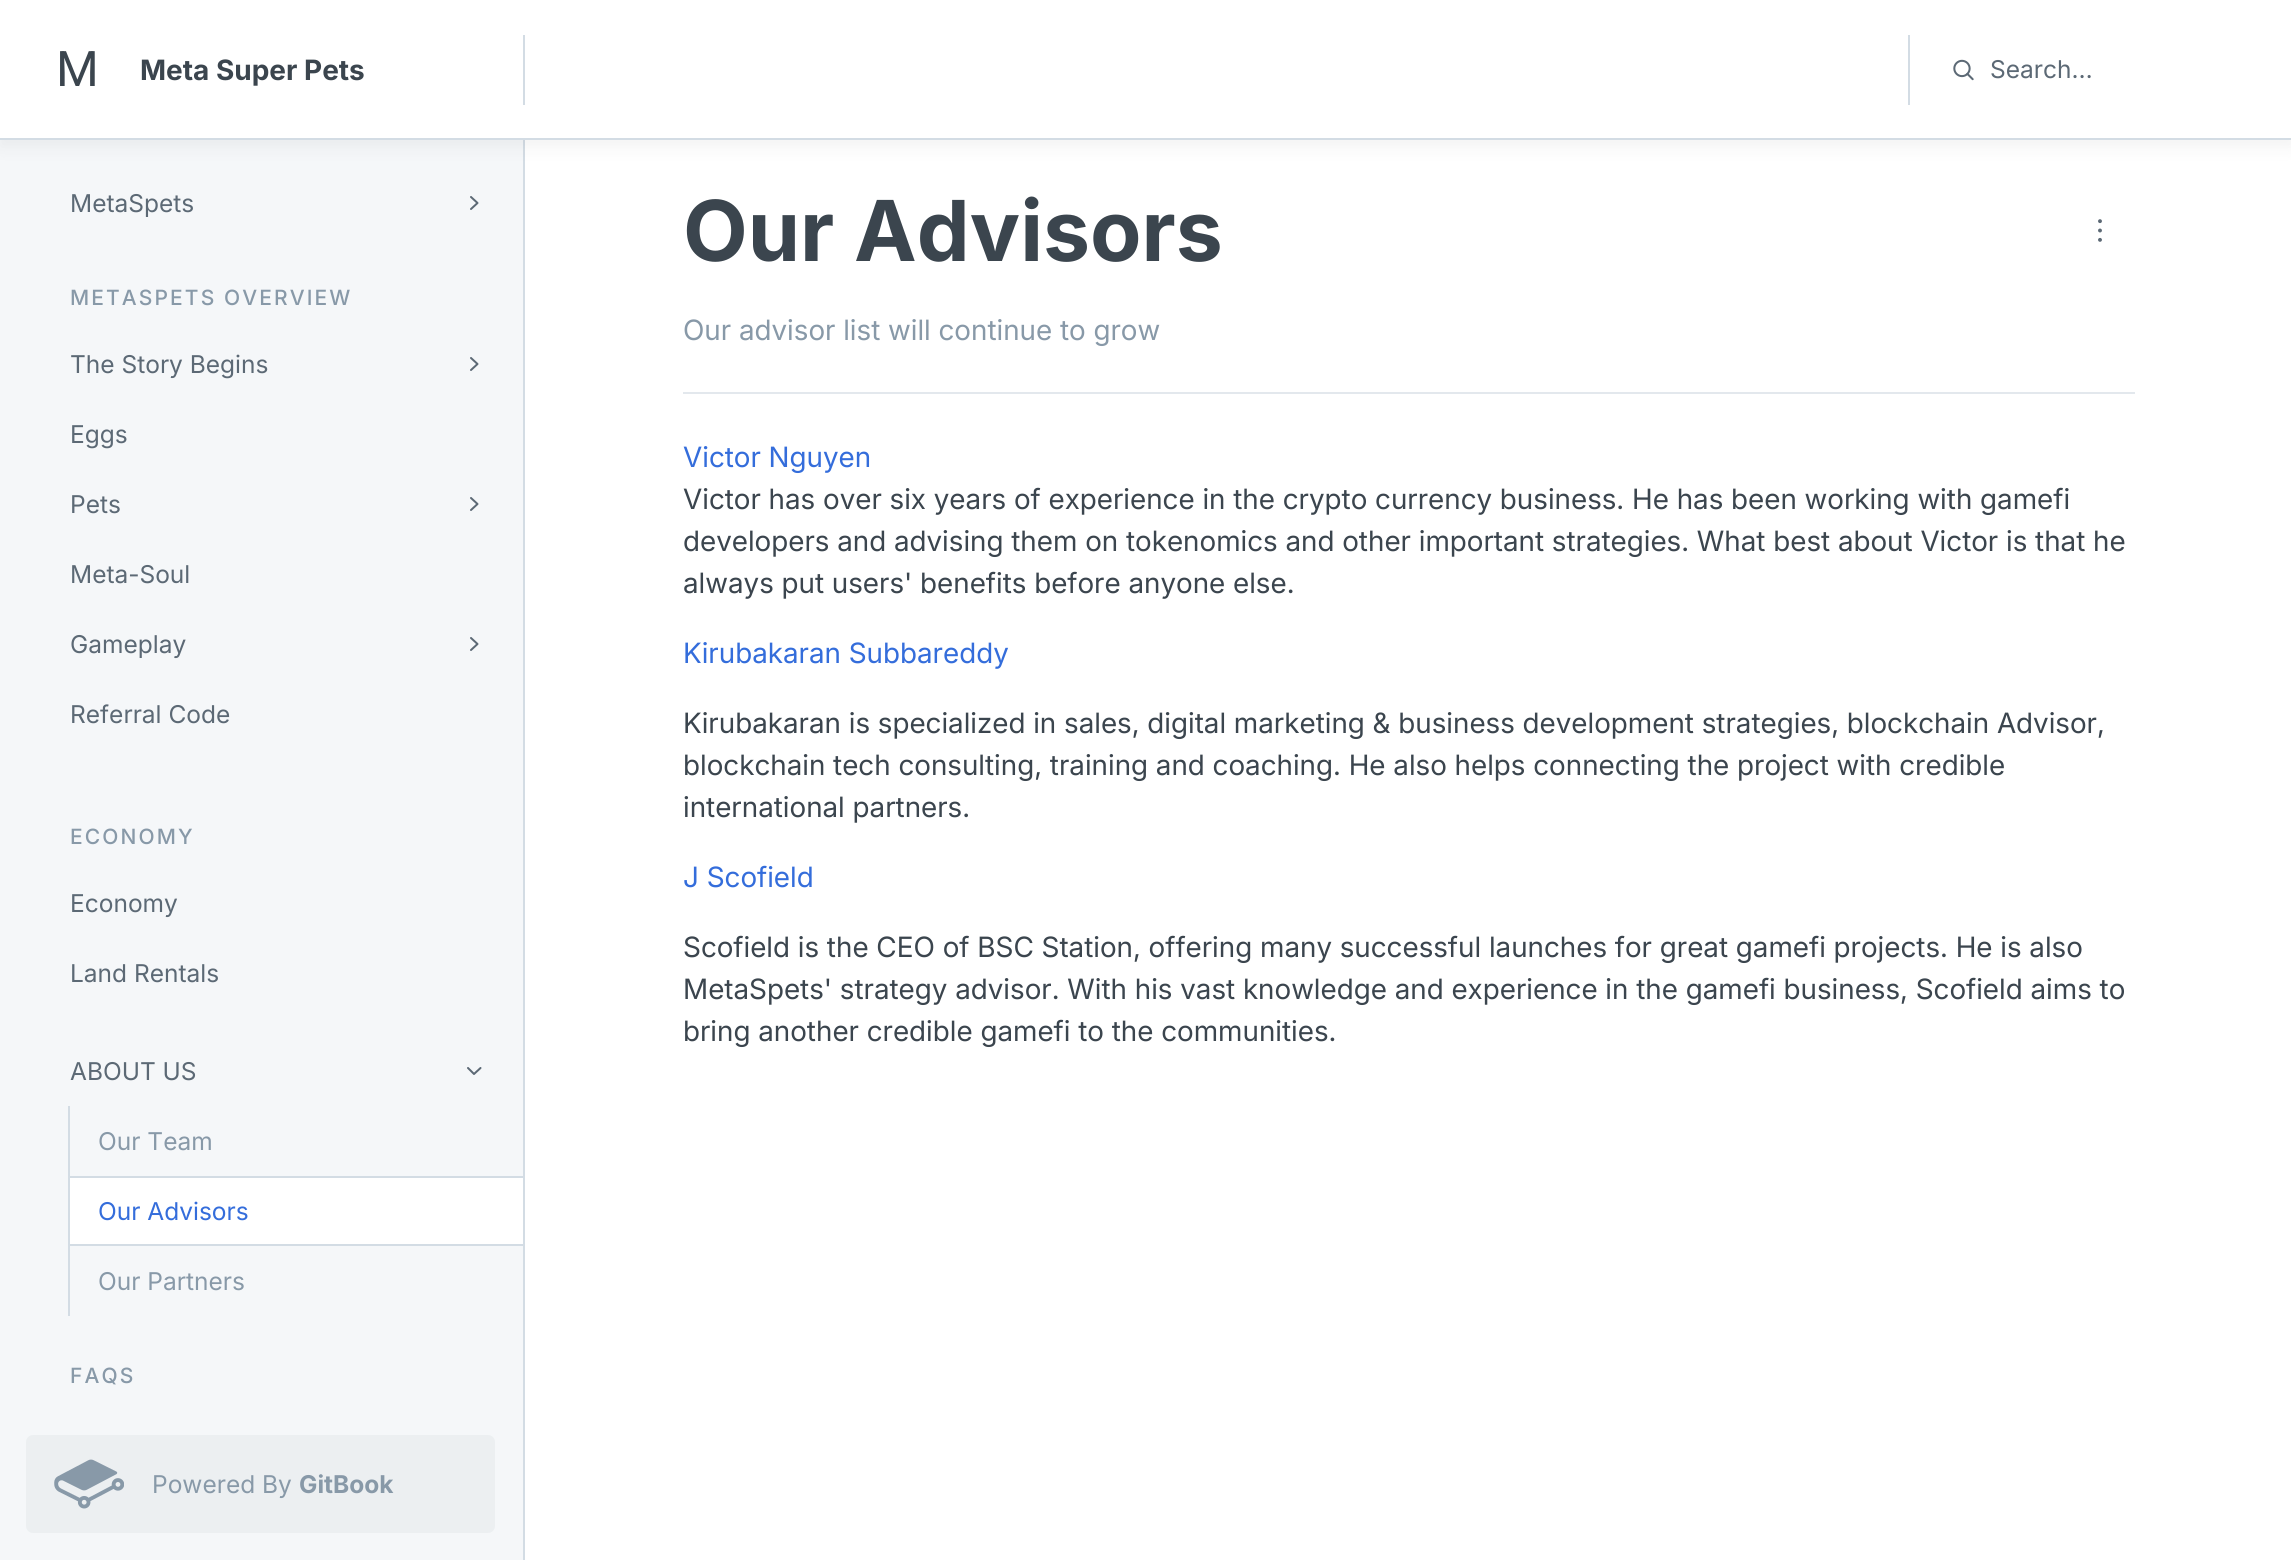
import math
import cairo

surface = cairo.ImageSurface(cairo.FORMAT_RGB24, 2291, 1560)
cr = cairo.Context(surface)
options = cairo.FontOptions()
options.set_hint_metrics(cairo.HINT_METRICS_OFF)
options.set_hint_style(cairo.HINT_STYLE_NONE)
cr.set_font_options(options)
cr.set_miter_limit(4)


def rgb(code):
    cr.set_source_rgb(*(v / 255 for v in bytes.fromhex(code[-6:])))


def tracked(x, y, s, letter, word):
    cr.move_to(x, y)
    for ch in s:
        cr.show_text(ch)
        cr.rel_move_to(letter + word * (ch == ' '), 0)


def rrect(x, y, w, h, r):
    cr.new_sub_path()
    for i, (u, v) in enumerate([(x + w - r, y + h - r), (x + r, y + h - r), (x + r, y + r), (x + w - r, y + r)]):
        cr.arc(u, v, r, i * math.pi / 2, (i + 1) * math.pi / 2)
    cr.close_path()


def soft_shadow(x, y, w, h, r, blur, alpha):
    cr.push_group_with_content(cairo.CONTENT_ALPHA)
    cr.set_operator(cairo.OPERATOR_SOURCE)
    for i in range(15, -16, -2):
        e = blur * i / 6
        if min(w, h) + 2 * e > 0:
            cr.set_source_rgba(0, 0, 0, alpha * math.erfc((i - 1) / 8.5) / 2)
            rrect(x - e, y - e, w + 2 * e, h + 2 * e, max(0, min(r + e + blur * .6, min(w, h) / 2 + e)))
            cr.fill()
    cr.mask(cr.pop_group())


def image(path, x, y, w, h):
    cr.save()
    cr.set_source_surface(cairo.ImageSurface.create_from_png(path), x, y)
    cr.rectangle(x, y, w, h)
    cr.fill()
    cr.restore()


rgb("#f5f7f9")
cr.paint()
rgb("#d3dce4")
cr.rectangle(523, 140, 2, 1420)
cr.fill()
rgb("#ffffff")
cr.rectangle(525, 140, 1766, 1420)
cr.fill()
rgb("#000000")
soft_shadow(0, 7, 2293, 140, 0, 9, 0.05)
for x, y, w, h, color in [
    (0, 0, 2291, 138, "#ffffff"),
    (0, 138, 2291, 2, "#d3dce4"),
    (523, 35, 2, 70, "#d3dce4"),
    (1908, 35, 2, 70, "#d3dce4"),
]:
    rgb(color)
    cr.rectangle(x, y, w, h)
    cr.fill()
image("img/1.png", 1953, 59, 21, 22)
cr.new_path()
cr.move_to(471, 209)
cr.line_to(477.5, 203)
cr.line_to(471, 197)
rgb("#5c6975")
cr.set_line_cap(cairo.LINE_CAP_ROUND)
cr.set_line_join(cairo.LINE_JOIN_ROUND)
cr.stroke()
cr.new_path()
cr.move_to(471, 370)
cr.line_to(477.5, 364)
cr.line_to(471, 358)
cr.stroke()
cr.new_path()
cr.move_to(471, 510)
cr.line_to(477.5, 504)
cr.line_to(471, 498)
cr.stroke()
cr.new_path()
cr.move_to(471, 650)
cr.line_to(477.5, 644)
cr.line_to(471, 638)
cr.stroke()
cr.new_path()
cr.move_to(468, 1068)
cr.line_to(474, 1074)
cr.line_to(480.5, 1068)
cr.stroke()
for x, y, w, h, color in [
    (68, 1176, 455, 2, "#d3dce4"),
    (68, 1244, 455, 2, "#d3dce4"),
    (68, 1106, 2, 210, "#d3dce4"),
    (70, 1178, 453, 66, "#ffffff"),
]:
    rgb(color)
    cr.rectangle(x, y, w, h)
    cr.fill()
rgb("#eceff1")
rrect(26, 1435, 469, 98, 7)
cr.fill()
image("img/2.png", 54, 1459, 70, 50)
image("img/3.png", 2098, 219, 4, 23)
rgb("#e3e8ed")
cr.rectangle(683, 392, 1452, 2)
cr.fill()
cr.select_font_face("Roboto")
cr.set_font_size(49)
rgb("#3b454e")
cr.move_to(56, 86)
cr.show_text("M")
cr.select_font_face("Inter", cairo.FONT_SLANT_NORMAL, cairo.FONT_WEIGHT_BOLD)
cr.set_font_size(28)
cr.move_to(140, 80)
cr.show_text("Meta Super Pets")
cr.select_font_face("Inter")
cr.set_font_size(24.5)
rgb("#5c6975")
cr.move_to(1990, 78)
cr.show_text("Search…")
cr.move_to(70, 212)
cr.show_text("MetaSpets")
cr.select_font_face("Inter Medium")
cr.set_font_size(21)
rgb("#8899a8")
tracked(70, 305, "METASPETS OVERVIEW", 2.1, 0)
cr.select_font_face("Inter")
cr.set_font_size(24.5)
rgb("#5c6975")
for x, y, s in [
    (70, 373, "The Story Begins"),
    (70, 443, "Eggs"),
    (70, 513, "Pets"),
    (70, 583, "Meta-Soul"),
    (70, 653, "Gameplay"),
    (70, 723, "Referral Code"),
]:
    cr.move_to(x, y)
    cr.show_text(s)
cr.select_font_face("Inter Medium")
cr.set_font_size(21)
rgb("#8899a8")
tracked(70, 844, "ECONOMY", 2.1, 0)
cr.select_font_face("Inter")
cr.set_font_size(24.5)
rgb("#5c6975")
for x, y, s in [
    (70, 912, "Economy"),
    (70, 982, "Land Rentals"),
    (70, 1080, "ABOUT US"),
]:
    cr.move_to(x, y)
    cr.show_text(s)
rgb("#8899a8")
cr.move_to(98, 1150)
cr.show_text("Our Team")
rgb("#346ddb")
cr.move_to(98, 1220)
cr.show_text("Our Advisors")
rgb("#8899a8")
cr.move_to(98, 1290)
cr.show_text("Our Partners")
cr.select_font_face("Inter Medium")
cr.set_font_size(21)
tracked(70, 1383, "FAQS", 2.1, 0)
cr.select_font_face("Inter")
cr.set_font_size(24.5)
cr.move_to(152, 1493)
cr.show_text("Powered By")
cr.select_font_face("Inter", cairo.FONT_SLANT_NORMAL, cairo.FONT_WEIGHT_BOLD)
cr.move_to(299, 1493)
cr.show_text("GitBook")
cr.set_font_size(84)
rgb("#3b454e")
cr.move_to(683, 261)
cr.show_text("Our Advisors")
cr.select_font_face("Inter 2")
cr.set_font_size(28)
rgb("#8899a8")
cr.move_to(683, 340)
cr.show_text("Our advisor list will continue to grow")
rgb("#346ddb")
cr.move_to(683, 467)
cr.show_text("Victor Nguyen")
rgb("#3b454e")
for x, y, s in [
    (683, 509, "Victor has over six years of experience in the crypto currency business. He has been working with gamefi"),
    (683, 551, "developers and advising them on tokenomics and other important strategies. What best about Victor is that he"),
    (683, 593, "always put users' benefits before anyone else."),
]:
    cr.move_to(x, y)
    cr.show_text(s)
rgb("#346ddb")
cr.move_to(683, 663)
cr.show_text("Kirubakaran Subbareddy")
rgb("#3b454e")
for x, y, s in [
    (683, 733, "Kirubakaran is specialized in sales, digital marketing & business development strategies, blockchain Advisor,"),
    (683, 775, "blockchain tech consulting, training and coaching. He also helps connecting the project with credible"),
    (683, 817, "international partners."),
]:
    cr.move_to(x, y)
    cr.show_text(s)
rgb("#346ddb")
cr.move_to(683, 887)
cr.show_text("J Scofield")
rgb("#3b454e")
for x, y, s in [
    (683, 957, "Scofield is the CEO of BSC Station, offering many successful launches for great gamefi projects. He is also"),
    (683, 999, "MetaSpets' strategy advisor. With his vast knowledge and experience in the gamefi business, Scofield aims to"),
    (683, 1041, "bring another credible gamefi to the communities."),
]:
    cr.move_to(x, y)
    cr.show_text(s)
surface.write_to_png("page.png")
